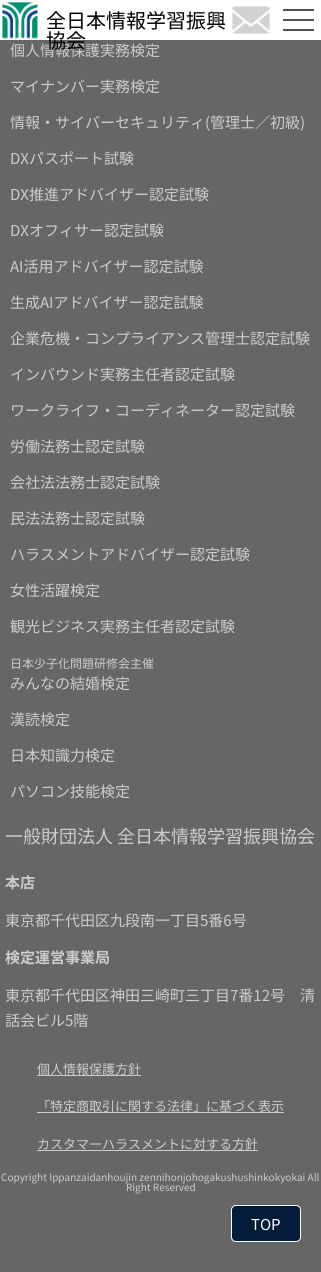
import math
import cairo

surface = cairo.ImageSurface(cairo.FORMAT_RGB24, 321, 1272)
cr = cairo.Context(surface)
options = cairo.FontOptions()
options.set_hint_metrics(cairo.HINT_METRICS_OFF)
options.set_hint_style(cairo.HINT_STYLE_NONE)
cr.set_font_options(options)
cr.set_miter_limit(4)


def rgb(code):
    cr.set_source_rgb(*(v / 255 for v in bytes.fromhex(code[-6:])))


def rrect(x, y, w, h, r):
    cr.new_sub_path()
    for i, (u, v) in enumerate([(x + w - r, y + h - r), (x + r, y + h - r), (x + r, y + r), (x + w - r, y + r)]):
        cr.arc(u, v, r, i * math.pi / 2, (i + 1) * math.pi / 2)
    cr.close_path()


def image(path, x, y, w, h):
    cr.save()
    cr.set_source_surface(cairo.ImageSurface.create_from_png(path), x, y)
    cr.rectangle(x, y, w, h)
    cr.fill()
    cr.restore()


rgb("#666666")
cr.paint()
rgb("#ffffff")
cr.rectangle(0, 0, 321, 40)
cr.fill()
image("img/1.png", 2, 2, 36, 37)
image("img/2.png", 232, 6, 38, 28)
for x, y, w, h, color in [
    (283, 9, 31, 2, "#4e5253"),
    (283, 19, 31, 2, "#4e5253"),
    (283, 29, 31, 2, "#4e5253"),
    (37, 1075, 104, 1, "#cccccc"),
    (37, 1112, 247, 1, "#cccccc"),
    (37, 1150, 221, 1, "#cccccc"),
]:
    rgb(color)
    cr.rectangle(x, y, w, h)
    cr.fill()
rgb("#031c3a")
rrect(231.5, 1205.5, 69, 36, 4.5)
cr.fill_preserve()
rgb("#ffffff")
cr.set_line_width(1)
cr.stroke()
cr.select_font_face("Noto Sans JP")
cr.set_font_size(20)
rgb("#000000")
cr.move_to(46, 28)
cr.show_text("全日本情報学習振興")
cr.set_font_size(15)
rgb("#cccccc")
cr.move_to(10, 56)
cr.show_text("個人情報保護実務検定")
cr.set_font_size(20)
rgb("#000000")
cr.move_to(46, 48)
cr.show_text("協会")
cr.set_font_size(15)
rgb("#cccccc")
for x, y, s in [
    (10, 92, "マイナンバー実務検定"),
    (10, 128, "情報・サイバーセキュリティ(管理士／初級)"),
    (10, 164, "DXパスポート試験"),
    (10, 200, "DX推進アドバイザー認定試験"),
    (10, 236, "DXオフィサー認定試験"),
    (10, 272, "AI活用アドバイザー認定試験"),
    (10, 308, "生成AIアドバイザー認定試験"),
    (10, 344, "企業危機・コンプライアンス管理士認定試験"),
    (10, 380, "インバウンド実務主任者認定試験"),
    (10, 416, "ワークライフ・コーディネーター認定試験"),
    (10, 452, "労働法務士認定試験"),
    (10, 488, "会社法法務士認定試験"),
    (10, 524, "民法法務士認定試験"),
    (10, 560, "ハラスメントアドバイザー認定試験"),
    (10, 596, "女性活躍検定"),
    (10, 632, "観光ビジネス実務主任者認定試験"),
]:
    cr.move_to(x, y)
    cr.show_text(s)
cr.set_font_size(12)
cr.move_to(10, 668)
cr.show_text("日本少子化問題研修会主催")
cr.set_font_size(15)
for x, y, s in [
    (10, 689, "みんなの結婚検定"),
    (10, 725, "漢読検定"),
    (10, 761, "日本知識力検定"),
    (10, 797, "パソコン技能検定"),
]:
    cr.move_to(x, y)
    cr.show_text(s)
cr.set_font_size(18)
cr.move_to(5, 843)
cr.show_text("一般財団法人 全日本情報学習振興協会")
cr.select_font_face("Noto Sans JP", cairo.FONT_SLANT_NORMAL, cairo.FONT_WEIGHT_BOLD)
cr.set_font_size(15)
cr.move_to(5, 888)
cr.show_text("本店")
cr.select_font_face("Noto Sans JP")
cr.move_to(5, 926)
cr.show_text("東京都千代田区九段南一丁目5番6号")
cr.select_font_face("Noto Sans JP", cairo.FONT_SLANT_NORMAL, cairo.FONT_WEIGHT_BOLD)
cr.move_to(5, 963)
cr.show_text("検定運営事業局")
cr.select_font_face("Noto Sans JP")
cr.move_to(5, 1001)
cr.show_text("東京都千代田区神田三崎町三丁目7番12号　清")
cr.move_to(5, 1026)
cr.show_text("話会ビル5階")
cr.set_font_size(13)
for x, y, s in [
    (37, 1074, "個人情報保護方針"),
    (37, 1111, "「特定商取引に関する法律」に基づく表示"),
    (37, 1149, "カスタマーハラスメントに対する方針"),
]:
    cr.move_to(x, y)
    cr.show_text(s)
cr.set_font_size(10)
cr.move_to(1, 1181)
cr.show_text("Copyright Ippanzaidanhoujin zennihonjohogakushushinkokyokai All")
cr.move_to(126, 1191)
cr.show_text("Right Reserved")
cr.set_font_size(15)
rgb("#ffffff")
cr.move_to(251, 1230)
cr.show_text("TOP")
surface.write_to_png("page.png")
